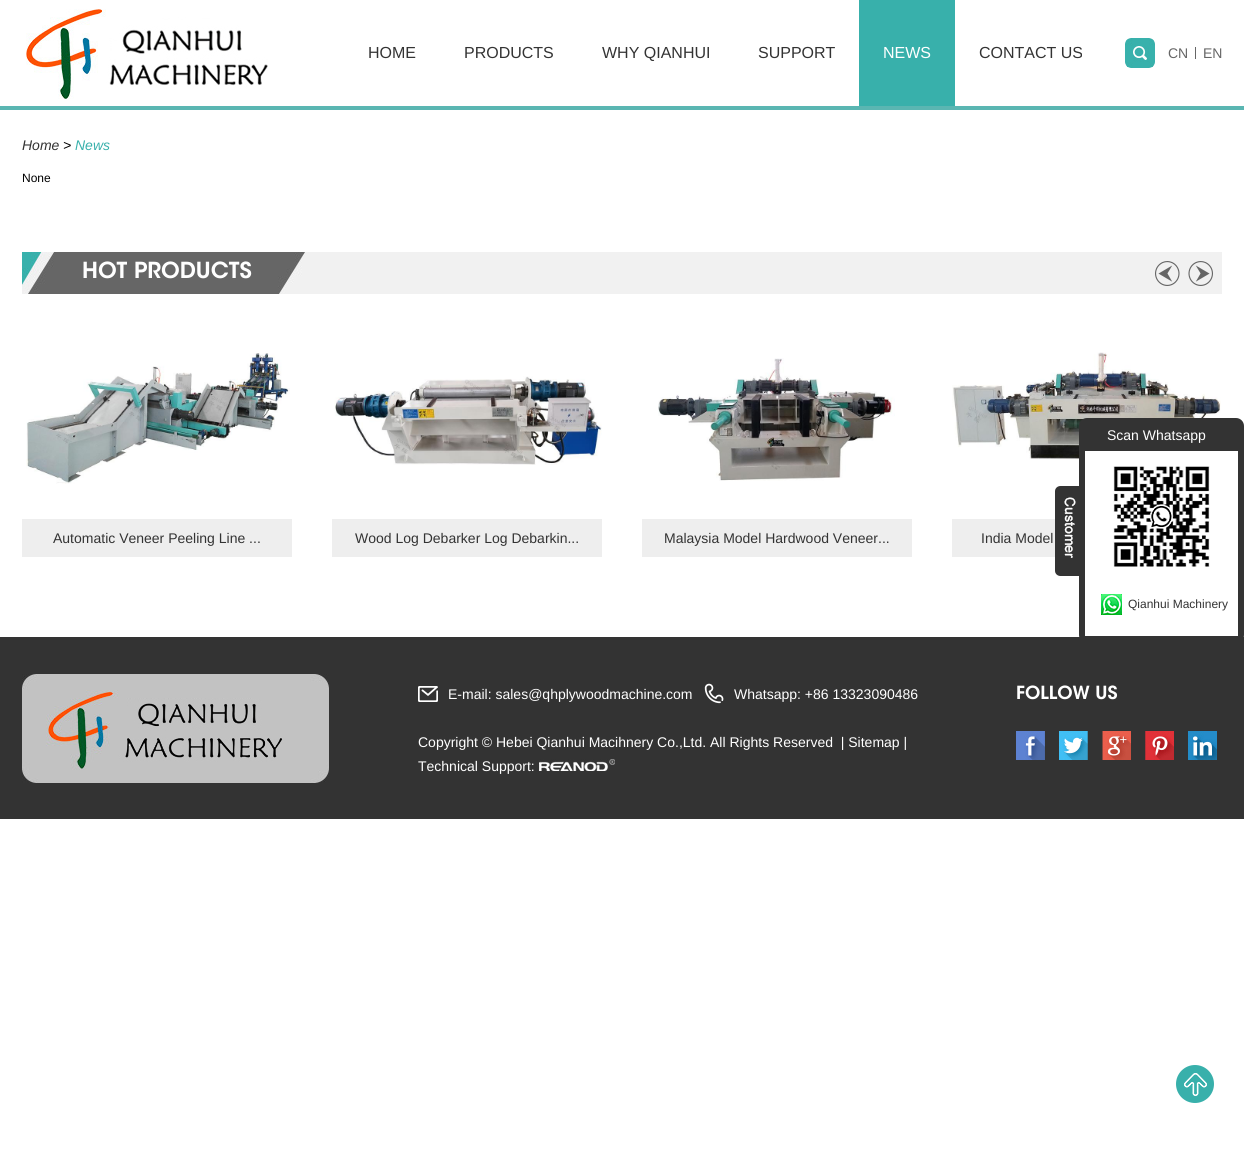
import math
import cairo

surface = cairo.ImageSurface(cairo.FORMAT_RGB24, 1244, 1156)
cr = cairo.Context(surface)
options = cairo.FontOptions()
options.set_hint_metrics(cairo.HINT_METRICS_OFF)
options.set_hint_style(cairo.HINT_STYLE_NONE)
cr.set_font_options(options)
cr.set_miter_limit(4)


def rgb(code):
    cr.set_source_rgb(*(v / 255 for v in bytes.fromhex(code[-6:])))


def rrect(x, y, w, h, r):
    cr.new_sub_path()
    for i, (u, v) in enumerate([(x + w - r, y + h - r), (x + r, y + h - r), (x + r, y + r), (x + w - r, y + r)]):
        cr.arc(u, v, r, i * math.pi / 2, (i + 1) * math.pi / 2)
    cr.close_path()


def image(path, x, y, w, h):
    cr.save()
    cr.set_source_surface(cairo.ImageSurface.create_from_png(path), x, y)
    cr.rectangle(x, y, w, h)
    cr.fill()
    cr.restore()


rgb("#ffffff")
cr.paint()
rgb("#5ab6b2")
cr.rectangle(0, 106, 1244, 4)
cr.fill()
image("img/1.png", 26, 9, 242, 90)
rgb("#38b0ab")
cr.rectangle(859, 0, 96, 106)
cr.fill()
image("img/2.png", 1125, 38, 30, 30)
rgb("#666666")
cr.rectangle(1195, 47, 1, 12)
cr.fill()
rgb("#f1f1f1")
cr.rectangle(305, 252, 917, 42)
cr.fill()
image("img/3.png", 22, 252, 283, 42)
image("img/4.png", 1155, 261, 25, 25)
image("img/5.png", 1188, 261, 25, 25)
image("img/6.png", 26, 353, 264, 131)
rgb("#eeeeee")
cr.rectangle(22, 519, 270, 38)
cr.fill()
image("img/7.png", 334, 376, 268, 89)
cr.rectangle(332, 519, 270, 38)
cr.fill()
image("img/8.png", 658, 358, 237, 123)
cr.rectangle(642, 519, 270, 38)
cr.fill()
image("img/9.png", 952, 352, 269, 109)
cr.rectangle(952, 519, 103, 38)
cr.fill()
image("img/10.png", 1055, 486, 24, 90)
rgb("#333333")
cr.rectangle(0, 637, 1244, 182)
cr.fill()
rrect(1079, 418, 165, 225, 8)
cr.fill()
rgb("#ffffff")
cr.rectangle(1085, 451, 153, 185)
cr.fill()
image("img/11.png", 1113, 466, 97, 101)
image("img/12.png", 1101, 594, 21, 21)
image("img/13.png", 22, 674, 307, 109)
image("img/14.png", 418, 686, 20, 16)
image("img/15.png", 704, 683, 20, 21)
image("img/16.png", 539, 759, 76, 12)
image("img/17.png", 1016, 731, 29, 29)
image("img/18.png", 1059, 731, 29, 29)
image("img/19.png", 1102, 731, 29, 29)
image("img/20.png", 1145, 731, 29, 29)
image("img/21.png", 1188, 731, 29, 29)
image("img/22.png", 1176, 1065, 38, 38)
cr.select_font_face("Liberation Sans")
cr.set_font_size(16)
rgb("#333333")
for x, y, s in [
    (368, 58, "HOME"),
    (464, 58, "PRODUCTS"),
    (602, 58, "WHY QIANHUI"),
    (758, 58, "SUPPORT"),
]:
    cr.move_to(x, y)
    cr.show_text(s)
rgb("#ffffff")
cr.move_to(883, 58)
cr.show_text("NEWS")
rgb("#333333")
cr.move_to(979, 58)
cr.show_text("CONTACT US")
cr.set_font_size(14)
rgb("#666666")
cr.move_to(1168, 58)
cr.show_text("CN")
cr.move_to(1203, 58)
cr.show_text("EN")
cr.select_font_face("Liberation Sans", cairo.FONT_SLANT_ITALIC)
rgb("#333333")
cr.move_to(22, 150)
cr.show_text("Home")
rgb("#000000")
cr.move_to(63, 150)
cr.show_text(">")
rgb("#38b0ab")
cr.move_to(75, 150)
cr.show_text("News")
cr.select_font_face("Liberation Sans")
cr.set_font_size(12)
rgb("#000000")
cr.move_to(22, 182)
cr.show_text("None")
cr.select_font_face("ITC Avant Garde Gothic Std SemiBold")
cr.set_font_size(22)
rgb("#ffffff")
cr.move_to(82, 278)
cr.show_text("HOT PRODUCTS")
cr.select_font_face("Liberation Sans")
cr.set_font_size(14)
rgb("#333333")
for x, y, s in [
    (53, 543, "Automatic Veneer Peeling Line ..."),
    (355, 543, "Wood Log Debarker Log Debarkin..."),
    (664, 543, "Malaysia Model Hardwood Veneer..."),
    (981, 543, "India Model"),
]:
    cr.move_to(x, y)
    cr.show_text(s)
rgb("#ffffff")
cr.move_to(1107, 440)
cr.show_text("Scan Whatsapp")
cr.set_font_size(12)
rgb("#333333")
cr.move_to(1128, 608)
cr.show_text("Qianhui Machinery")
cr.set_font_size(14)
rgb("#ffffff")
for x, y, s in [
    (448, 699, "E-mail: sales@qhplywoodmachine.com"),
    (734, 699, "Whatsapp: +86 13323090486"),
    (418, 747, "Copyright © Hebei Qianhui Macihnery Co.,Ltd. All Rights Reserved  | Sitemap |"),
    (418, 771, "Technical Support:"),
]:
    cr.move_to(x, y)
    cr.show_text(s)
cr.select_font_face("ITC Avant Garde Gothic Std SemiBold")
cr.set_font_size(18)
cr.move_to(1016, 699)
cr.show_text("FOLLOW US")
surface.write_to_png("page.png")
